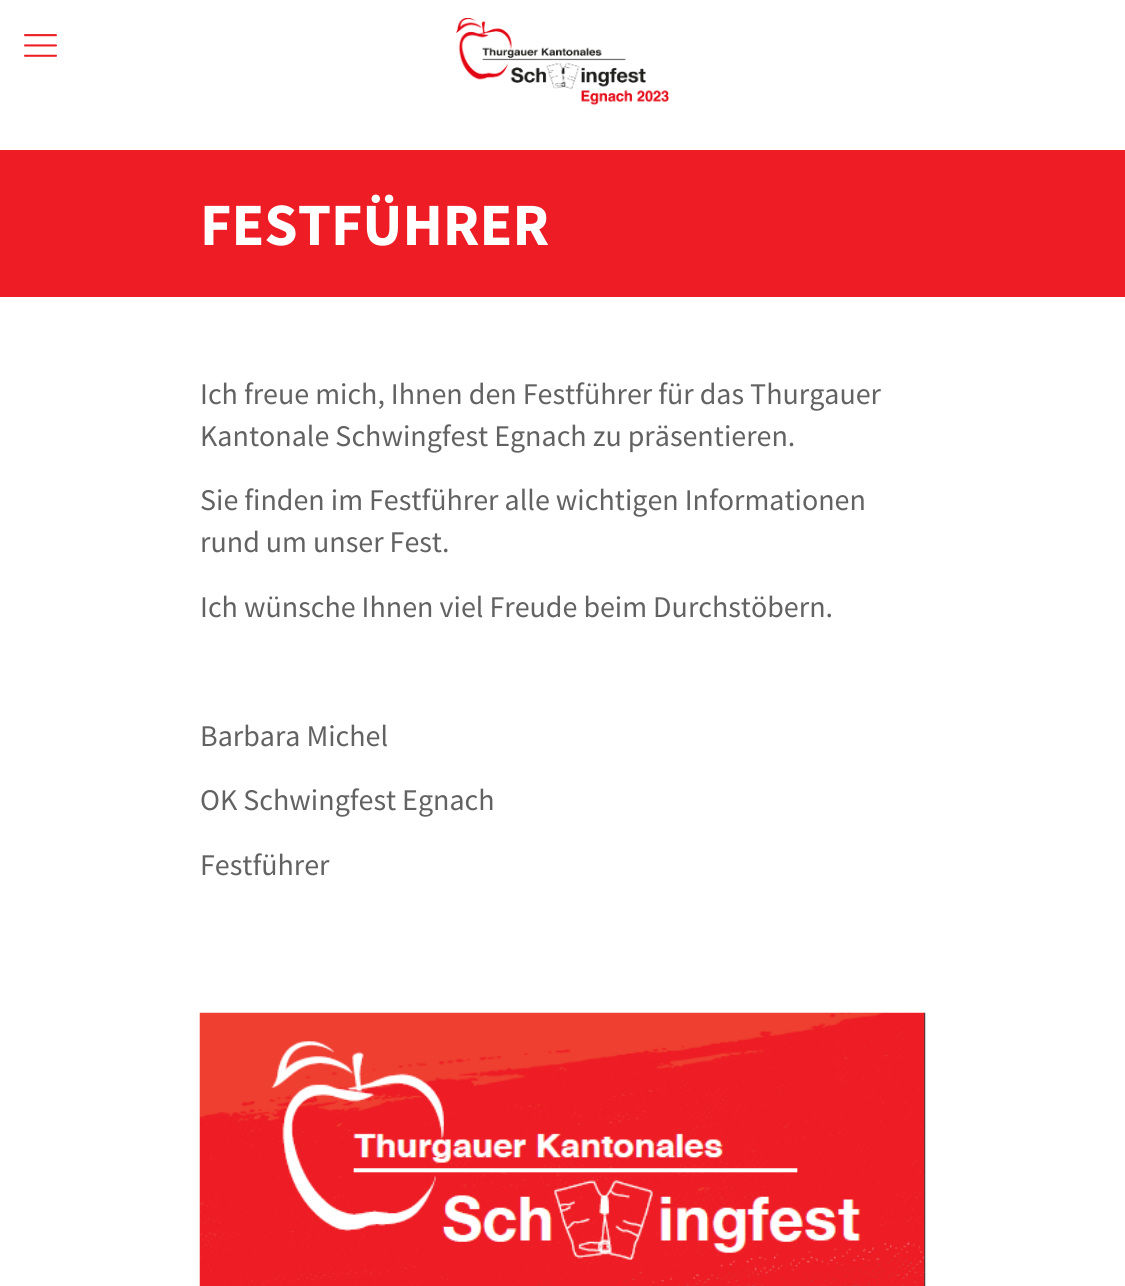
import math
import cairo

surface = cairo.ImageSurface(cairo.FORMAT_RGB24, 1125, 1286)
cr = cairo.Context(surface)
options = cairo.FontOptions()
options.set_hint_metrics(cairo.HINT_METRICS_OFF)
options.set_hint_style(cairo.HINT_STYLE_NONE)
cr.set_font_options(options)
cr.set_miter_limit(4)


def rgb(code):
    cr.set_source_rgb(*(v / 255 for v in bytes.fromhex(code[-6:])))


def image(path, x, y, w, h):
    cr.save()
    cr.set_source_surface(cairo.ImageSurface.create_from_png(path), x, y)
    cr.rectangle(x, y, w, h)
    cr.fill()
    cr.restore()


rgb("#ffffff")
cr.paint()
image("img/1.png", 24, 34, 33, 23)
image("img/2.png", 456, 18, 213, 88)
rgb("#ee1c25")
cr.rectangle(0, 150, 1125, 147)
cr.fill()
image("img/3.png", 199, 1012, 727, 274)
cr.select_font_face("Source Sans Pro", cairo.FONT_SLANT_NORMAL, cairo.FONT_WEIGHT_BOLD)
cr.set_font_size(60)
rgb("#ffffff")
cr.move_to(200, 245)
cr.show_text("FESTFÜHRER")
cr.select_font_face("Source Sans Pro")
cr.set_font_size(30)
rgb("#626262")
for x, y, s in [
    (200, 404, "Ich freue mich, Ihnen den Festführer für das Thurgauer"),
    (200, 446, "Kantonale Schwingfest Egnach zu präsentieren."),
    (200, 510, "Sie finden im Festführer alle wichtigen Informationen"),
    (200, 552, "rund um unser Fest."),
    (200, 617, "Ich wünsche Ihnen viel Freude beim Durchstöbern."),
    (200, 746, "Barbara Michel"),
    (200, 810, "OK Schwingfest Egnach"),
    (200, 875, "Festführer"),
]:
    cr.move_to(x, y)
    cr.show_text(s)
surface.write_to_png("page.png")
